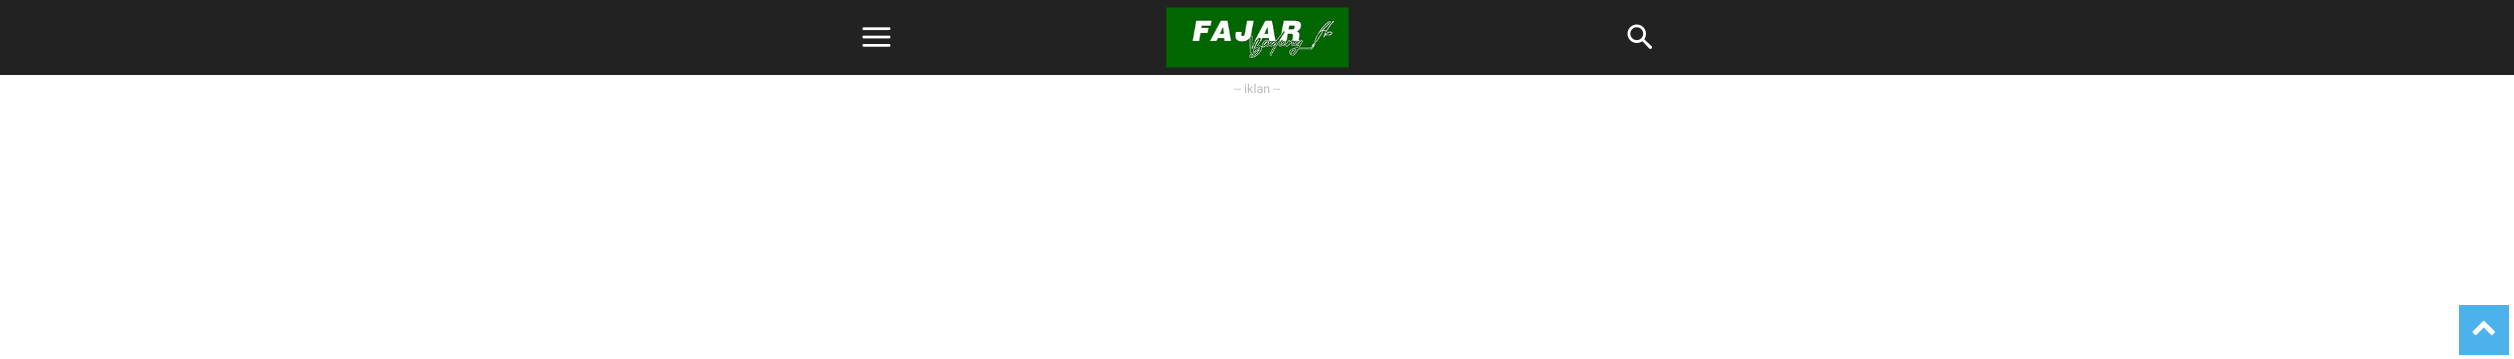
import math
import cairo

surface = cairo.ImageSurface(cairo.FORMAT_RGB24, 2514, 359)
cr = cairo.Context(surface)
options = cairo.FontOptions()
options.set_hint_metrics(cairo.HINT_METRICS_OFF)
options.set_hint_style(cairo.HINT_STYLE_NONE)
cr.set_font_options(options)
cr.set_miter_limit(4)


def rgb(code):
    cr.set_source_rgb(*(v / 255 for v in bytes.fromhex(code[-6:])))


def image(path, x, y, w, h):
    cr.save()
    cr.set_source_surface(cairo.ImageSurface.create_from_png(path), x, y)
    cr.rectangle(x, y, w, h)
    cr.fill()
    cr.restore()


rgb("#ffffff")
cr.paint()
rgb("#222222")
cr.rectangle(0, 0, 2514, 75)
cr.fill()
image("img/1.png", 862, 27, 29, 20)
image("img/2.png", 1166, 7, 183, 61)
image("img/3.png", 1627, 24, 25, 25)
rgb("#4db2ec")
cr.rectangle(2459, 305, 50, 50)
cr.fill()
image("img/4.png", 2472, 320, 23, 16)
cr.select_font_face("Roboto")
cr.set_font_size(12.5)
rgb("#bbbbbb")
cr.move_to(1234, 93)
cr.show_text("-- iklan --")
surface.write_to_png("page.png")
